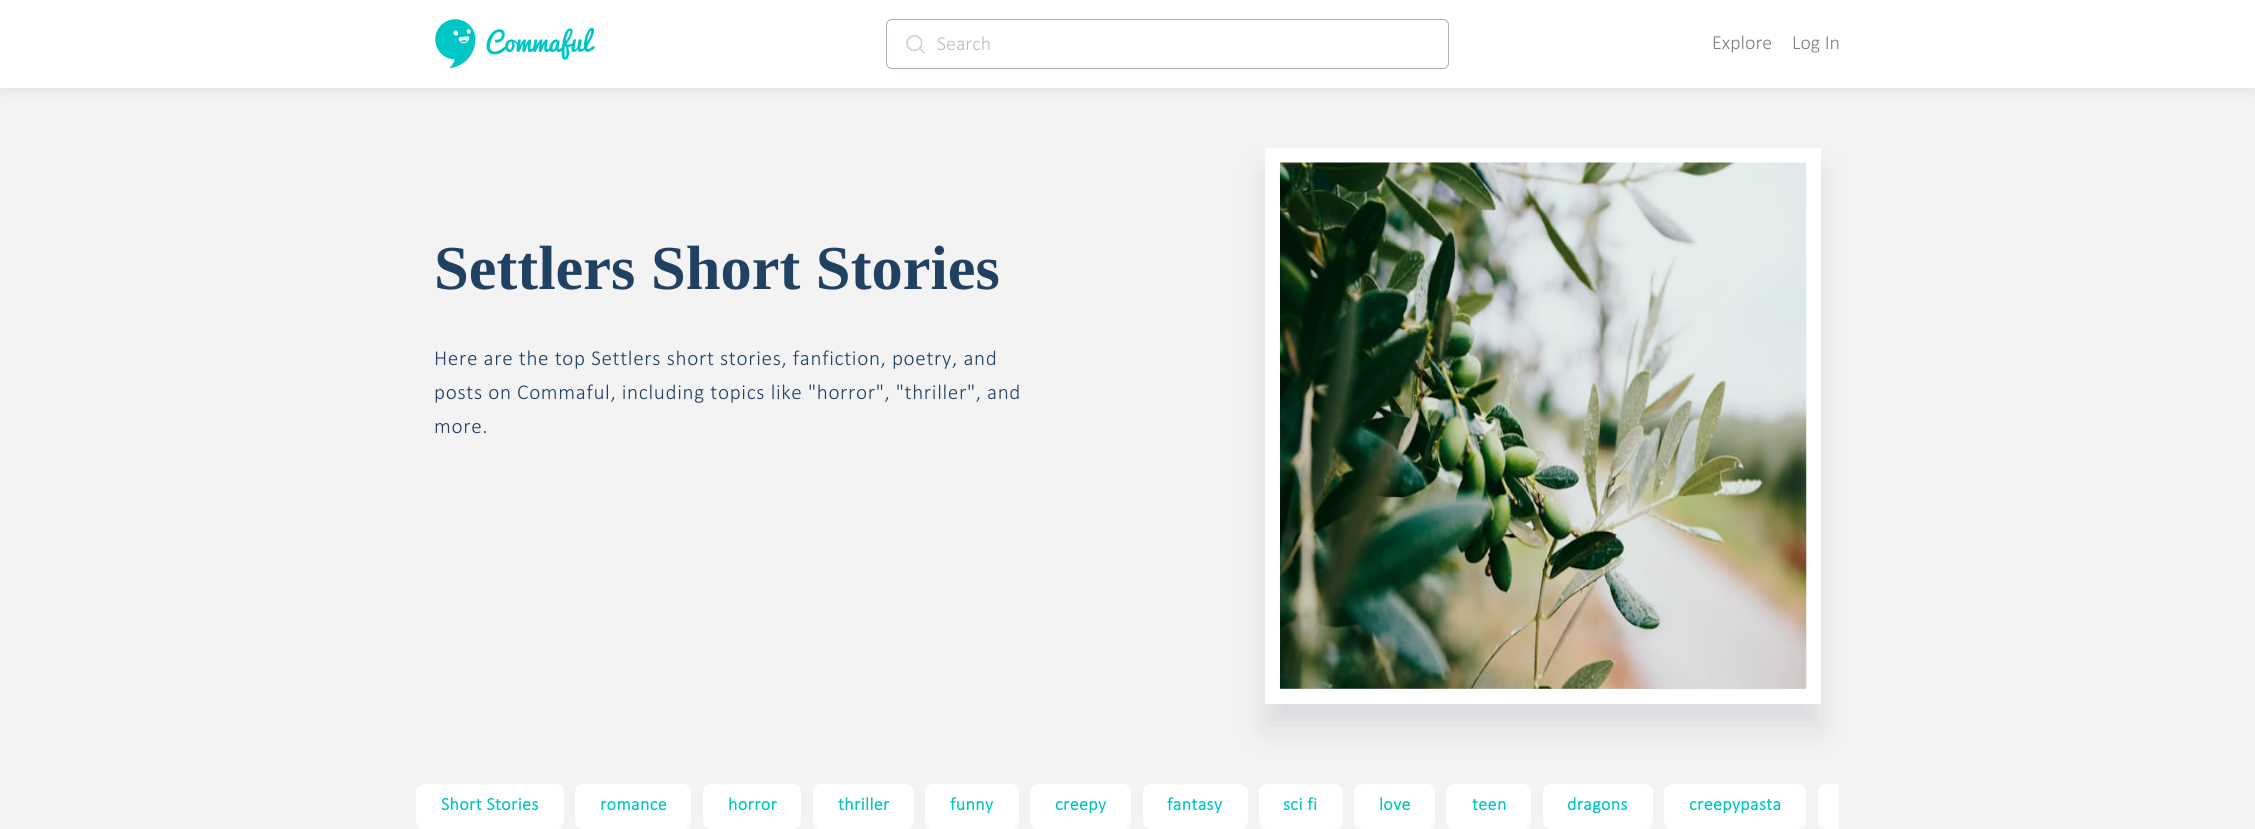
import math
import cairo

surface = cairo.ImageSurface(cairo.FORMAT_RGB24, 2255, 829)
cr = cairo.Context(surface)
options = cairo.FontOptions()
options.set_hint_metrics(cairo.HINT_METRICS_OFF)
options.set_hint_style(cairo.HINT_STYLE_NONE)
cr.set_font_options(options)
cr.set_miter_limit(4)


def rgb(code):
    cr.set_source_rgb(*(v / 255 for v in bytes.fromhex(code[-6:])))


def tracked(x, y, s, letter, word):
    cr.move_to(x, y)
    for ch in s:
        cr.show_text(ch)
        cr.rel_move_to(letter + word * (ch == ' '), 0)


def rrect(x, y, w, h, r):
    cr.new_sub_path()
    for i, (u, v) in enumerate([(x + w - r, y + h - r), (x + r, y + h - r), (x + r, y + r), (x + w - r, y + r)]):
        cr.arc(u, v, r, i * math.pi / 2, (i + 1) * math.pi / 2)
    cr.close_path()


def soft_shadow(x, y, w, h, r, blur, alpha):
    cr.push_group_with_content(cairo.CONTENT_ALPHA)
    cr.set_operator(cairo.OPERATOR_SOURCE)
    for i in range(15, -16, -2):
        e = blur * i / 6
        if min(w, h) + 2 * e > 0:
            cr.set_source_rgba(0, 0, 0, alpha * math.erfc((i - 1) / 8.5) / 2)
            rrect(x - e, y - e, w + 2 * e, h + 2 * e, max(0, min(r + e + blur * .6, min(w, h) / 2 + e)))
            cr.fill()
    cr.mask(cr.pop_group())


def image(path, x, y, w, h):
    cr.save()
    cr.set_source_surface(cairo.ImageSurface.create_from_png(path), x, y)
    cr.rectangle(x, y, w, h)
    cr.fill()
    cr.restore()


rgb("#ffffff")
cr.paint()
rgb("#f3f3f3")
cr.rectangle(0, 88, 2255, 741)
cr.fill()
cr.save()
cr.set_fill_rule(cairo.FILL_RULE_EVEN_ODD)
cr.new_path()
cr.move_to(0, 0)
cr.line_to(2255, 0)
cr.line_to(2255, 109)
cr.line_to(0, 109)
cr.close_path()
cr.move_to(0, 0)
cr.line_to(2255, 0)
cr.line_to(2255, 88)
cr.line_to(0, 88)
cr.close_path()
cr.clip()
rgb("#214163")
soft_shadow(0, 3, 2255, 87, 0, 6, 0.1)
cr.restore()
image("img/1.png", 435, 19, 160, 50)
image("img/2.png", 906, 35, 19, 19)
cr.set_source_rgba(1, 1, 1, 0.5)
rrect(886.5, 19.5, 562, 49, 5.5)
cr.fill_preserve()
rgb("#a4b1bf")
cr.set_line_width(1)
cr.stroke()
rgb("#000b28")
soft_shadow(1265, 173, 556, 556, 0, 15, 0.1)
cr.rectangle(1272.5, 155.5, 541, 541)
rgb("#ffffff")
cr.set_line_width(15)
cr.stroke()
image("img/3.png", 1280, 162, 527, 527)
rrect(416, 784, 148, 45, 8)
cr.fill()
rrect(575, 784, 116, 45, 8)
cr.fill()
rrect(703, 784, 98, 45, 8)
cr.fill()
rrect(813, 784, 101, 45, 8)
cr.fill()
rrect(925, 784, 94, 45, 8)
cr.fill()
rrect(1030, 784, 101, 45, 8)
cr.fill()
rrect(1143, 784, 105, 45, 8)
cr.fill()
rrect(1259, 784, 84, 45, 8)
cr.fill()
rrect(1354, 784, 81, 45, 8)
cr.fill()
rrect(1446, 784, 85, 45, 8)
cr.fill()
rrect(1543, 784, 110, 45, 8)
cr.fill()
rrect(1664, 784, 142, 45, 8)
cr.fill()
cr.new_path()
cr.move_to(1826, 784)
cr.line_to(1839, 784)
cr.line_to(1839, 829)
cr.line_to(1826, 829)
cr.curve_to(1821.5, 829, 1818, 825.5, 1818, 821)
cr.line_to(1818, 792)
cr.curve_to(1818, 787.5, 1821.5, 784, 1826, 784)
cr.close_path()
cr.fill()
cr.select_font_face("Calibri Light")
cr.set_font_size(20)
rgb("#bababa")
cr.move_to(937, 50)
cr.show_text("Search")
rgb("#808080")
cr.move_to(1712, 49)
cr.show_text("Explore")
cr.move_to(1792, 49)
cr.show_text("Log In")
cr.select_font_face("Liberation Serif", cairo.FONT_SLANT_NORMAL, cairo.FONT_WEIGHT_BOLD)
cr.set_font_size(62.5)
rgb("#214163")
cr.move_to(434, 289)
cr.show_text("Settlers Short Stories")
cr.select_font_face("Calibri Light")
cr.set_font_size(21.25)
for x, y, s in [
    (434, 365, "Here are the top Settlers short stories, fanfiction, poetry, and"),
    (434, 399, "posts on Commaful, including topics like \"horror\", \"thriller\", and"),
    (434, 433, "more."),
]:
    tracked(x, y, s, 0.65, 0)
cr.select_font_face("Calibri", cairo.FONT_SLANT_NORMAL, cairo.FONT_WEIGHT_BOLD)
cr.set_font_size(18)
rgb("#00c6c6")
for x, y, s in [
    (441, 810, "Short Stories"),
    (600, 810, "romance"),
    (728, 810, "horror"),
    (838, 810, "thriller"),
    (950, 810, "funny"),
    (1055, 810, "creepy"),
    (1167, 810, "fantasy"),
    (1283, 810, "sci fi"),
    (1379, 810, "love"),
    (1472, 810, "teen"),
    (1567, 810, "dragons"),
    (1689, 810, "creepypasta"),
]:
    tracked(x, y, s, 0.4, 0)
surface.write_to_png("page.png")
